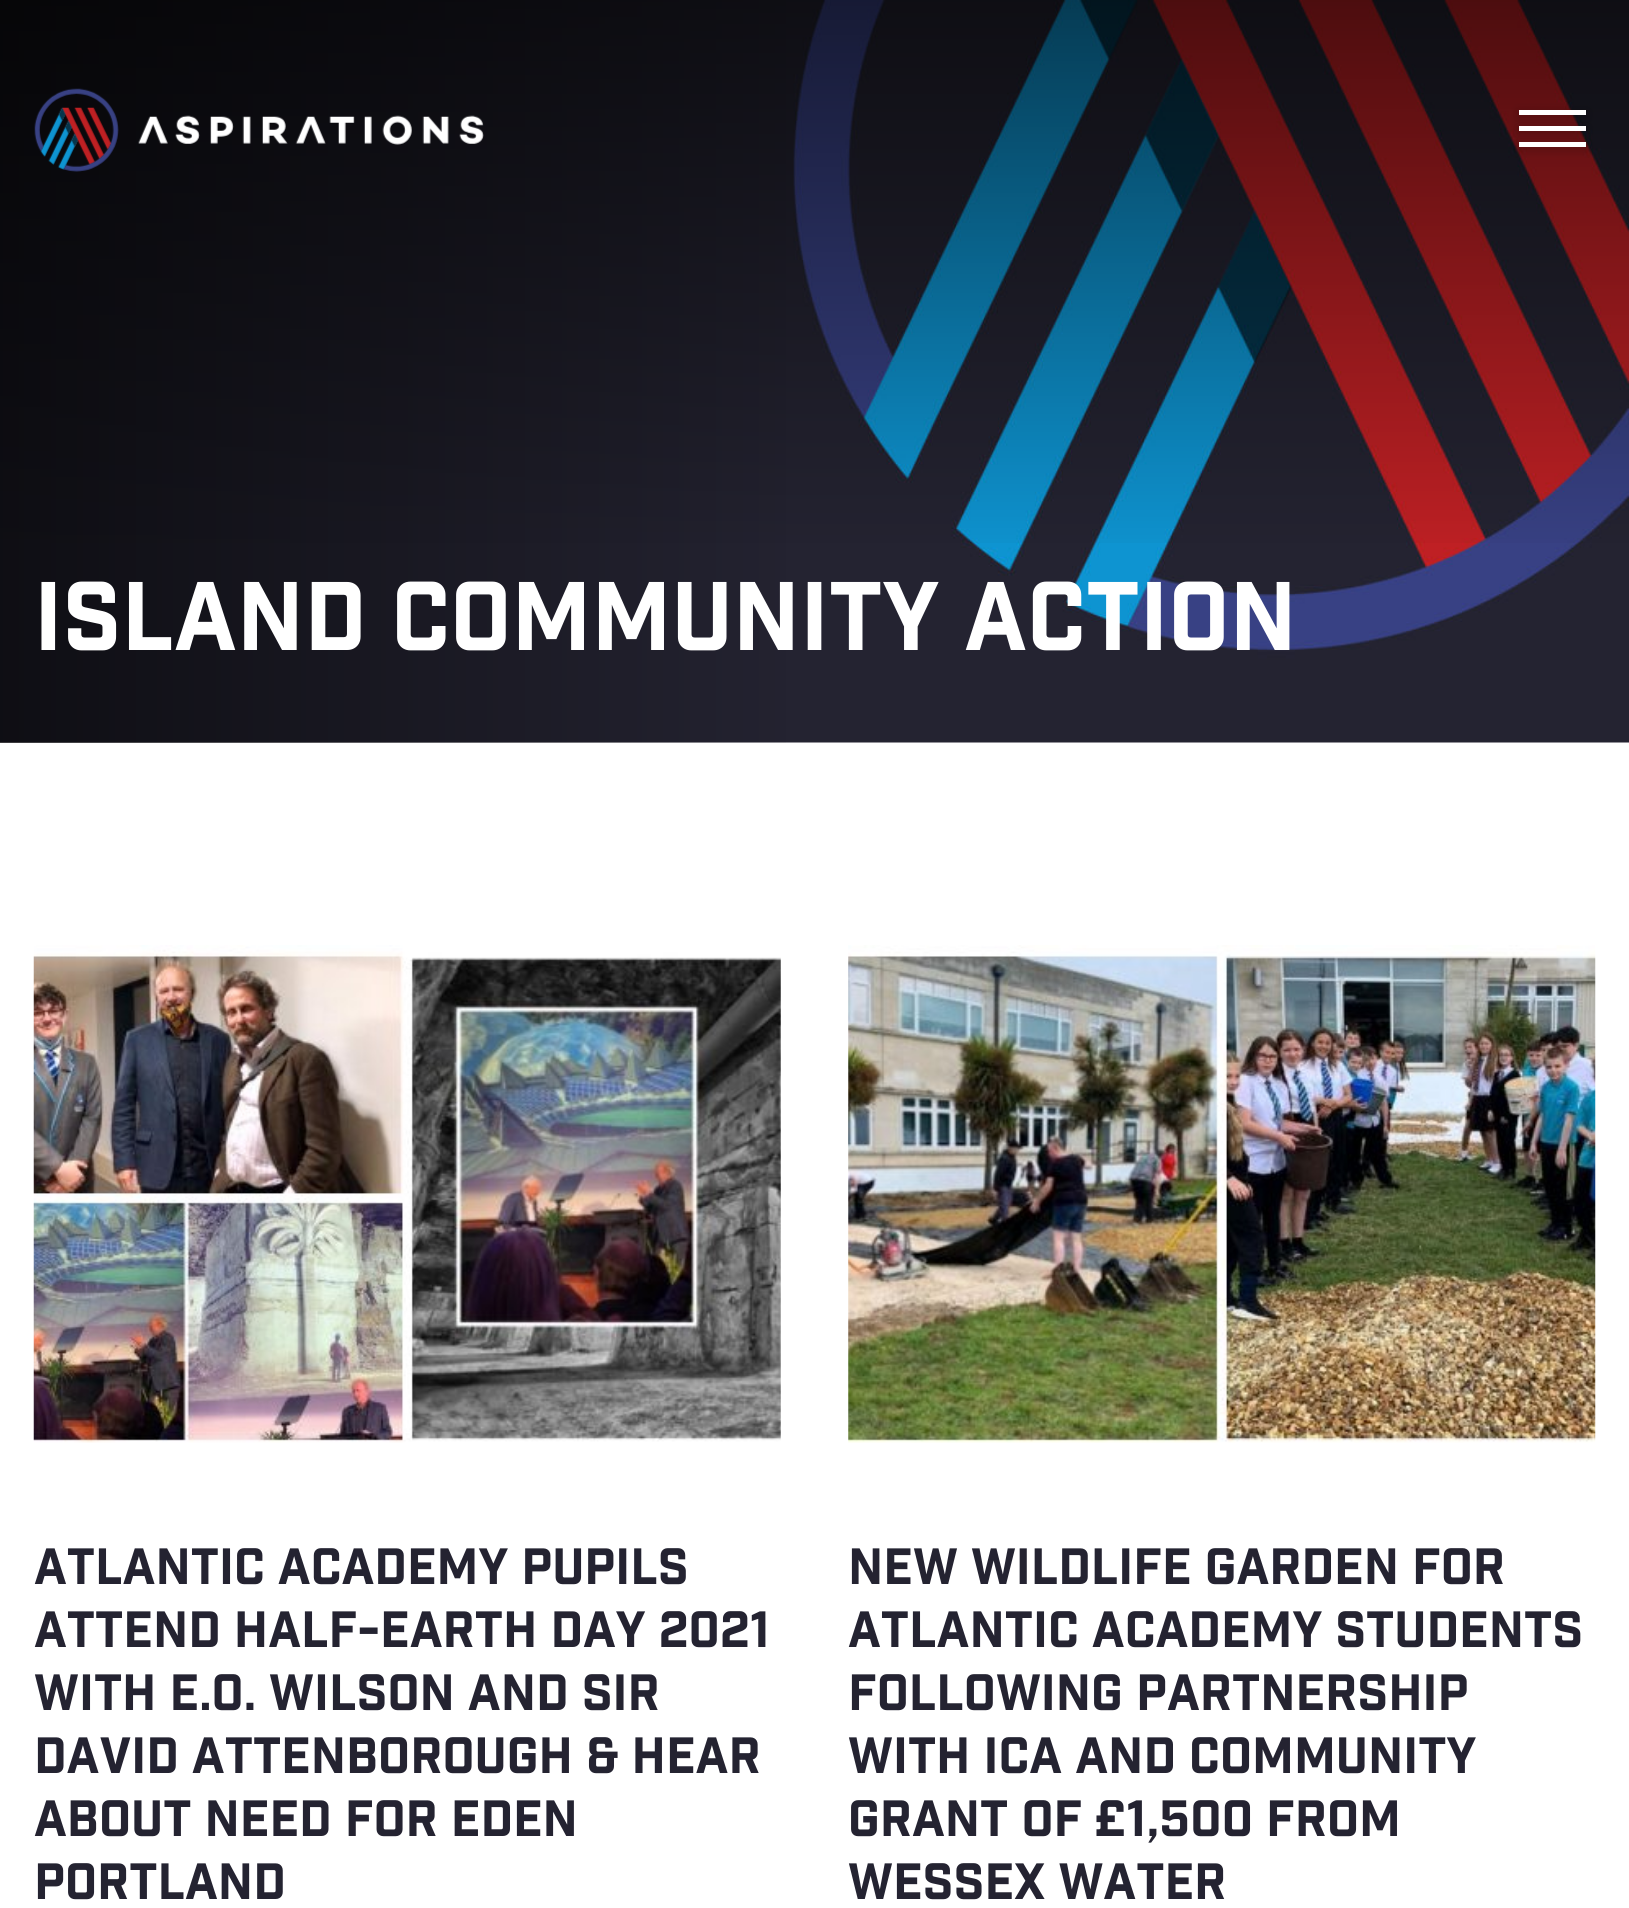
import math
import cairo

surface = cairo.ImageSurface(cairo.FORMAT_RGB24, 1629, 1908)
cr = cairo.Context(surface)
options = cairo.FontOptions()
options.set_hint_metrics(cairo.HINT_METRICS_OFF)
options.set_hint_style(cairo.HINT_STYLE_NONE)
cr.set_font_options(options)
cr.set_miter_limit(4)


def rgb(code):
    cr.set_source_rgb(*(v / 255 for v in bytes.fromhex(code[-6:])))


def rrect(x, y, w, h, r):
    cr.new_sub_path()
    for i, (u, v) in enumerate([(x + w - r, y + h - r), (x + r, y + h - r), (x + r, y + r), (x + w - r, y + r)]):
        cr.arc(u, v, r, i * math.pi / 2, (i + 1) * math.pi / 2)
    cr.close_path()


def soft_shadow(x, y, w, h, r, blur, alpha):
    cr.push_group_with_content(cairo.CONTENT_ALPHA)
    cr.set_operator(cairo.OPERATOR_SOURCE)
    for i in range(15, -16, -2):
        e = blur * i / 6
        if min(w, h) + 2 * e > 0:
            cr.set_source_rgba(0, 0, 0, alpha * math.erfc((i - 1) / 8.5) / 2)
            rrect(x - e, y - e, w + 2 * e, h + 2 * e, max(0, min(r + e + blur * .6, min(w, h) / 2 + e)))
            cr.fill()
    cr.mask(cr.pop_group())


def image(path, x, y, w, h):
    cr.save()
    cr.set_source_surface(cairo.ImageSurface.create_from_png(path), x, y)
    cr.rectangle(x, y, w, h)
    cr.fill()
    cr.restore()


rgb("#ffffff")
cr.paint()
image("img/2.png", 0, 0, 1629, 743)
gradient = cairo.LinearGradient(815, 371, 0, 371)
gradient.add_color_stop_rgba(0, 0, 0, 0, 0)
gradient.add_color_stop_rgba(1, 0, 0, 0, 0.6)
cr.set_source(gradient)
cr.rectangle(0, 0, 786, 743)
cr.fill()
gradient = cairo.LinearGradient(815, 563, 815, 0)
gradient.add_color_stop_rgba(0, 0, 0, 0, 0)
gradient.add_color_stop_rgba(1, 0, 0, 0, 0.6)
cr.set_source(gradient)
cr.rectangle(0, 0, 1629, 543)
cr.fill()
image("img/1.png", 34, 88, 450, 84)
rgb("#000000")
soft_shadow(1517, 110, 72, 9, 0, 4.5, 0.15)
rgb("#ffffff")
cr.rectangle(1519, 110, 67, 5)
cr.fill()
rgb("#000000")
soft_shadow(1517, 126, 72, 9, 0, 4.5, 0.15)
rgb("#ffffff")
cr.rectangle(1519, 126, 67, 5)
cr.fill()
rgb("#000000")
soft_shadow(1517, 142, 72, 9, 0, 4.5, 0.15)
rgb("#ffffff")
cr.rectangle(1519, 142, 67, 5)
cr.fill()
image("img/3.png", 33, 945, 748, 498)
image("img/4.png", 848, 945, 748, 498)
cr.select_font_face("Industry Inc")
cr.set_font_size(94.5)
cr.move_to(34, 650)
cr.show_text("ISLAND COMMUNITY ACTION")
cr.set_font_size(49.5)
rgb("#242331")
for x, y, s in [
    (34, 1584, "ATLANTIC ACADEMY PUPILS"),
    (34, 1647, "ATTEND HALF-EARTH DAY 2021"),
    (34, 1710, "WITH E.O. WILSON AND SIR"),
    (34, 1773, "DAVID ATTENBOROUGH & HEAR"),
    (34, 1836, "ABOUT NEED FOR EDEN"),
    (34, 1899, "PORTLAND"),
    (848, 1584, "NEW WILDLIFE GARDEN FOR"),
    (848, 1647, "ATLANTIC ACADEMY STUDENTS"),
    (848, 1710, "FOLLOWING PARTNERSHIP"),
    (848, 1773, "WITH ICA AND COMMUNITY"),
    (848, 1836, "GRANT OF £1,500 FROM"),
    (848, 1899, "WESSEX WATER"),
]:
    cr.move_to(x, y)
    cr.show_text(s)
surface.write_to_png("page.png")
